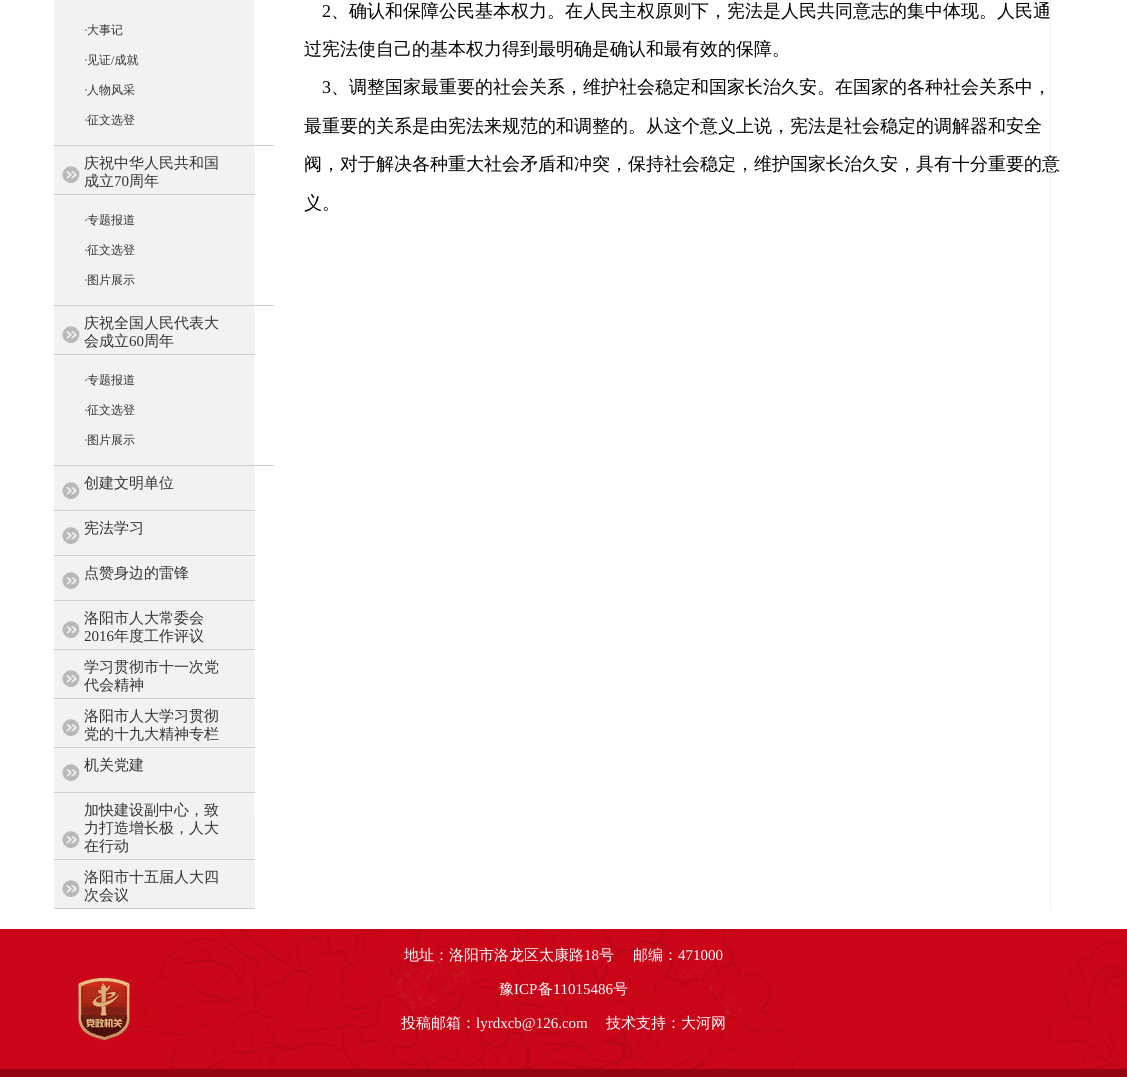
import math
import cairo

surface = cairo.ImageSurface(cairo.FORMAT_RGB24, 1127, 1077)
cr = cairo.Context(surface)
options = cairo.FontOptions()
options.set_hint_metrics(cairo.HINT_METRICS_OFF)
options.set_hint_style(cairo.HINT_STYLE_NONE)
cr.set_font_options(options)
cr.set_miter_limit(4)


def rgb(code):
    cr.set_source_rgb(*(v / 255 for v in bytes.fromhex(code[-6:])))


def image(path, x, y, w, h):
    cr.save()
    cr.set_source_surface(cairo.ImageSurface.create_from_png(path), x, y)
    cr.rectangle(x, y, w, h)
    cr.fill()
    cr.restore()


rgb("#ffffff")
cr.paint()
image("img/1.png", 54, 0, 997, 909)
rgb("#cccccc")
cr.rectangle(54, 145, 220, 1)
cr.fill()
image("img/2.png", 54, 150, 201, 45)
cr.rectangle(54, 305, 220, 1)
cr.fill()
image("img/2.png", 54, 310, 201, 45)
cr.rectangle(54, 465, 220, 1)
cr.fill()
image("img/2.png", 54, 466, 201, 45)
image("img/2.png", 54, 511, 201, 45)
image("img/2.png", 54, 556, 201, 45)
image("img/2.png", 54, 605, 201, 45)
image("img/2.png", 54, 654, 201, 45)
image("img/2.png", 54, 703, 201, 45)
image("img/2.png", 54, 748, 201, 45)
image("img/2.png", 54, 815, 201, 45)
image("img/2.png", 54, 864, 201, 45)
image("img/3.png", 0, 929, 1127, 148)
image("img/4.png", 78, 977, 52, 64)
cr.select_font_face("Liberation Serif")
cr.set_font_size(12)
rgb("#333333")
cr.move_to(84, 34)
cr.show_text("·")
cr.select_font_face("WenQuanYi Zen Hei Medium")
cr.move_to(87, 34)
cr.show_text("大事记")
cr.move_to(87, 64)
cr.show_text("见证 成就")
cr.select_font_face("Liberation Serif")
for x, y, s in [
    (84, 64, "·"),
    (111, 64, "/"),
    (84, 94, "·"),
]:
    cr.move_to(x, y)
    cr.show_text(s)
cr.select_font_face("WenQuanYi Zen Hei Medium")
cr.move_to(87, 94)
cr.show_text("人物风采")
cr.select_font_face("Liberation Serif")
cr.move_to(84, 124)
cr.show_text("·")
cr.select_font_face("WenQuanYi Zen Hei Medium")
cr.move_to(87, 124)
cr.show_text("征文选登")
cr.set_font_size(15)
cr.move_to(84, 168)
cr.show_text("庆祝中华人民共和国")
cr.move_to(84, 186)
cr.show_text("成立")
cr.select_font_face("Liberation Serif")
cr.move_to(114, 186)
cr.show_text("70")
cr.select_font_face("WenQuanYi Zen Hei Medium")
cr.move_to(129, 186)
cr.show_text("周年")
cr.select_font_face("Liberation Serif")
cr.set_font_size(12)
cr.move_to(84, 224)
cr.show_text("·")
cr.select_font_face("WenQuanYi Zen Hei Medium")
cr.move_to(87, 224)
cr.show_text("专题报道")
cr.select_font_face("Liberation Serif")
cr.move_to(84, 254)
cr.show_text("·")
cr.select_font_face("WenQuanYi Zen Hei Medium")
cr.move_to(87, 254)
cr.show_text("征文选登")
cr.select_font_face("Liberation Serif")
cr.move_to(84, 284)
cr.show_text("·")
cr.select_font_face("WenQuanYi Zen Hei Medium")
cr.move_to(87, 284)
cr.show_text("图片展示")
cr.set_font_size(15)
cr.move_to(84, 328)
cr.show_text("庆祝全国人民代表大")
cr.move_to(84, 346)
cr.show_text("会成立")
cr.select_font_face("Liberation Serif")
cr.move_to(129, 346)
cr.show_text("60")
cr.select_font_face("WenQuanYi Zen Hei Medium")
cr.move_to(144, 346)
cr.show_text("周年")
cr.select_font_face("Liberation Serif")
cr.set_font_size(12)
cr.move_to(84, 384)
cr.show_text("·")
cr.select_font_face("WenQuanYi Zen Hei Medium")
cr.move_to(87, 384)
cr.show_text("专题报道")
cr.select_font_face("Liberation Serif")
cr.move_to(84, 414)
cr.show_text("·")
cr.select_font_face("WenQuanYi Zen Hei Medium")
cr.move_to(87, 414)
cr.show_text("征文选登")
cr.select_font_face("Liberation Serif")
cr.move_to(84, 444)
cr.show_text("·")
cr.select_font_face("WenQuanYi Zen Hei Medium")
cr.move_to(87, 444)
cr.show_text("图片展示")
cr.set_font_size(15)
for x, y, s in [
    (84, 488, "创建文明单位"),
    (84, 533, "宪法学习"),
    (84, 578, "点赞身边的雷锋"),
    (84, 623, "洛阳市人大常委会"),
]:
    cr.move_to(x, y)
    cr.show_text(s)
cr.select_font_face("Liberation Serif")
cr.move_to(84, 641)
cr.show_text("2016")
cr.select_font_face("WenQuanYi Zen Hei Medium")
for x, y, s in [
    (114, 641, "年度工作评议"),
    (84, 672, "学习贯彻市十一次党"),
    (84, 690, "代会精神"),
    (84, 721, "洛阳市人大学习贯彻"),
    (84, 739, "党的十九大精神专栏"),
    (84, 770, "机关党建"),
    (84, 815, "加快建设副中心，致"),
    (84, 833, "力打造增长极，人大"),
    (84, 851, "在行动"),
    (84, 882, "洛阳市十五届人大四"),
    (84, 900, "次会议"),
]:
    cr.move_to(x, y)
    cr.show_text(s)
cr.select_font_face("Liberation Serif")
cr.set_font_size(18)
rgb("#000000")
cr.move_to(322, 17)
cr.show_text("2")
cr.select_font_face("WenQuanYi Zen Hei Medium")
cr.move_to(331, 17)
cr.show_text("、确认和保障公民基本权力。在人民主权原则下，宪法是人民共同意志的集中体现。人民通")
cr.move_to(304, 55)
cr.show_text("过宪法使自己的基本权力得到最明确是确认和最有效的保障。")
cr.select_font_face("Liberation Serif")
cr.move_to(322, 93)
cr.show_text("3")
cr.select_font_face("WenQuanYi Zen Hei Medium")
for x, y, s in [
    (331, 93, "、调整国家最重要的社会关系，维护社会稳定和国家长治久安。在国家的各种社会关系中，"),
    (304, 132, "最重要的关系是由宪法来规范的和调整的。从这个意义上说，宪法是社会稳定的调解器和安全"),
    (304, 170, "阀，对于解决各种重大社会矛盾和冲突，保持社会稳定，维护国家长治久安，具有十分重要的意"),
    (304, 209, "义。"),
]:
    cr.move_to(x, y)
    cr.show_text(s)
cr.set_font_size(15)
rgb("#ffffff")
cr.move_to(404, 960)
cr.show_text("地址：洛阳市洛龙区太康路")
cr.select_font_face("Liberation Serif")
cr.move_to(584, 960)
cr.show_text("18")
cr.select_font_face("WenQuanYi Zen Hei Medium")
cr.move_to(599, 960)
cr.show_text("号")
cr.move_to(633, 960)
cr.show_text("邮编：")
cr.select_font_face("Liberation Serif")
cr.move_to(678, 960)
cr.show_text("471000")
cr.select_font_face("WenQuanYi Zen Hei Medium")
cr.move_to(499, 994)
cr.show_text("豫")
cr.select_font_face("Liberation Serif")
cr.move_to(514, 994)
cr.show_text("ICP")
cr.select_font_face("WenQuanYi Zen Hei Medium")
cr.move_to(538, 994)
cr.show_text("备")
cr.select_font_face("Liberation Serif")
cr.move_to(553, 994)
cr.show_text("11015486")
cr.select_font_face("WenQuanYi Zen Hei Medium")
cr.move_to(613, 994)
cr.show_text("号")
cr.move_to(401, 1028)
cr.show_text("投稿邮箱：")
cr.select_font_face("Liberation Serif")
cr.move_to(476, 1028)
cr.show_text("lyrdxcb@126.com")
cr.select_font_face("WenQuanYi Zen Hei Medium")
cr.move_to(606, 1028)
cr.show_text("技术支持：大河网")
surface.write_to_png("page.png")
